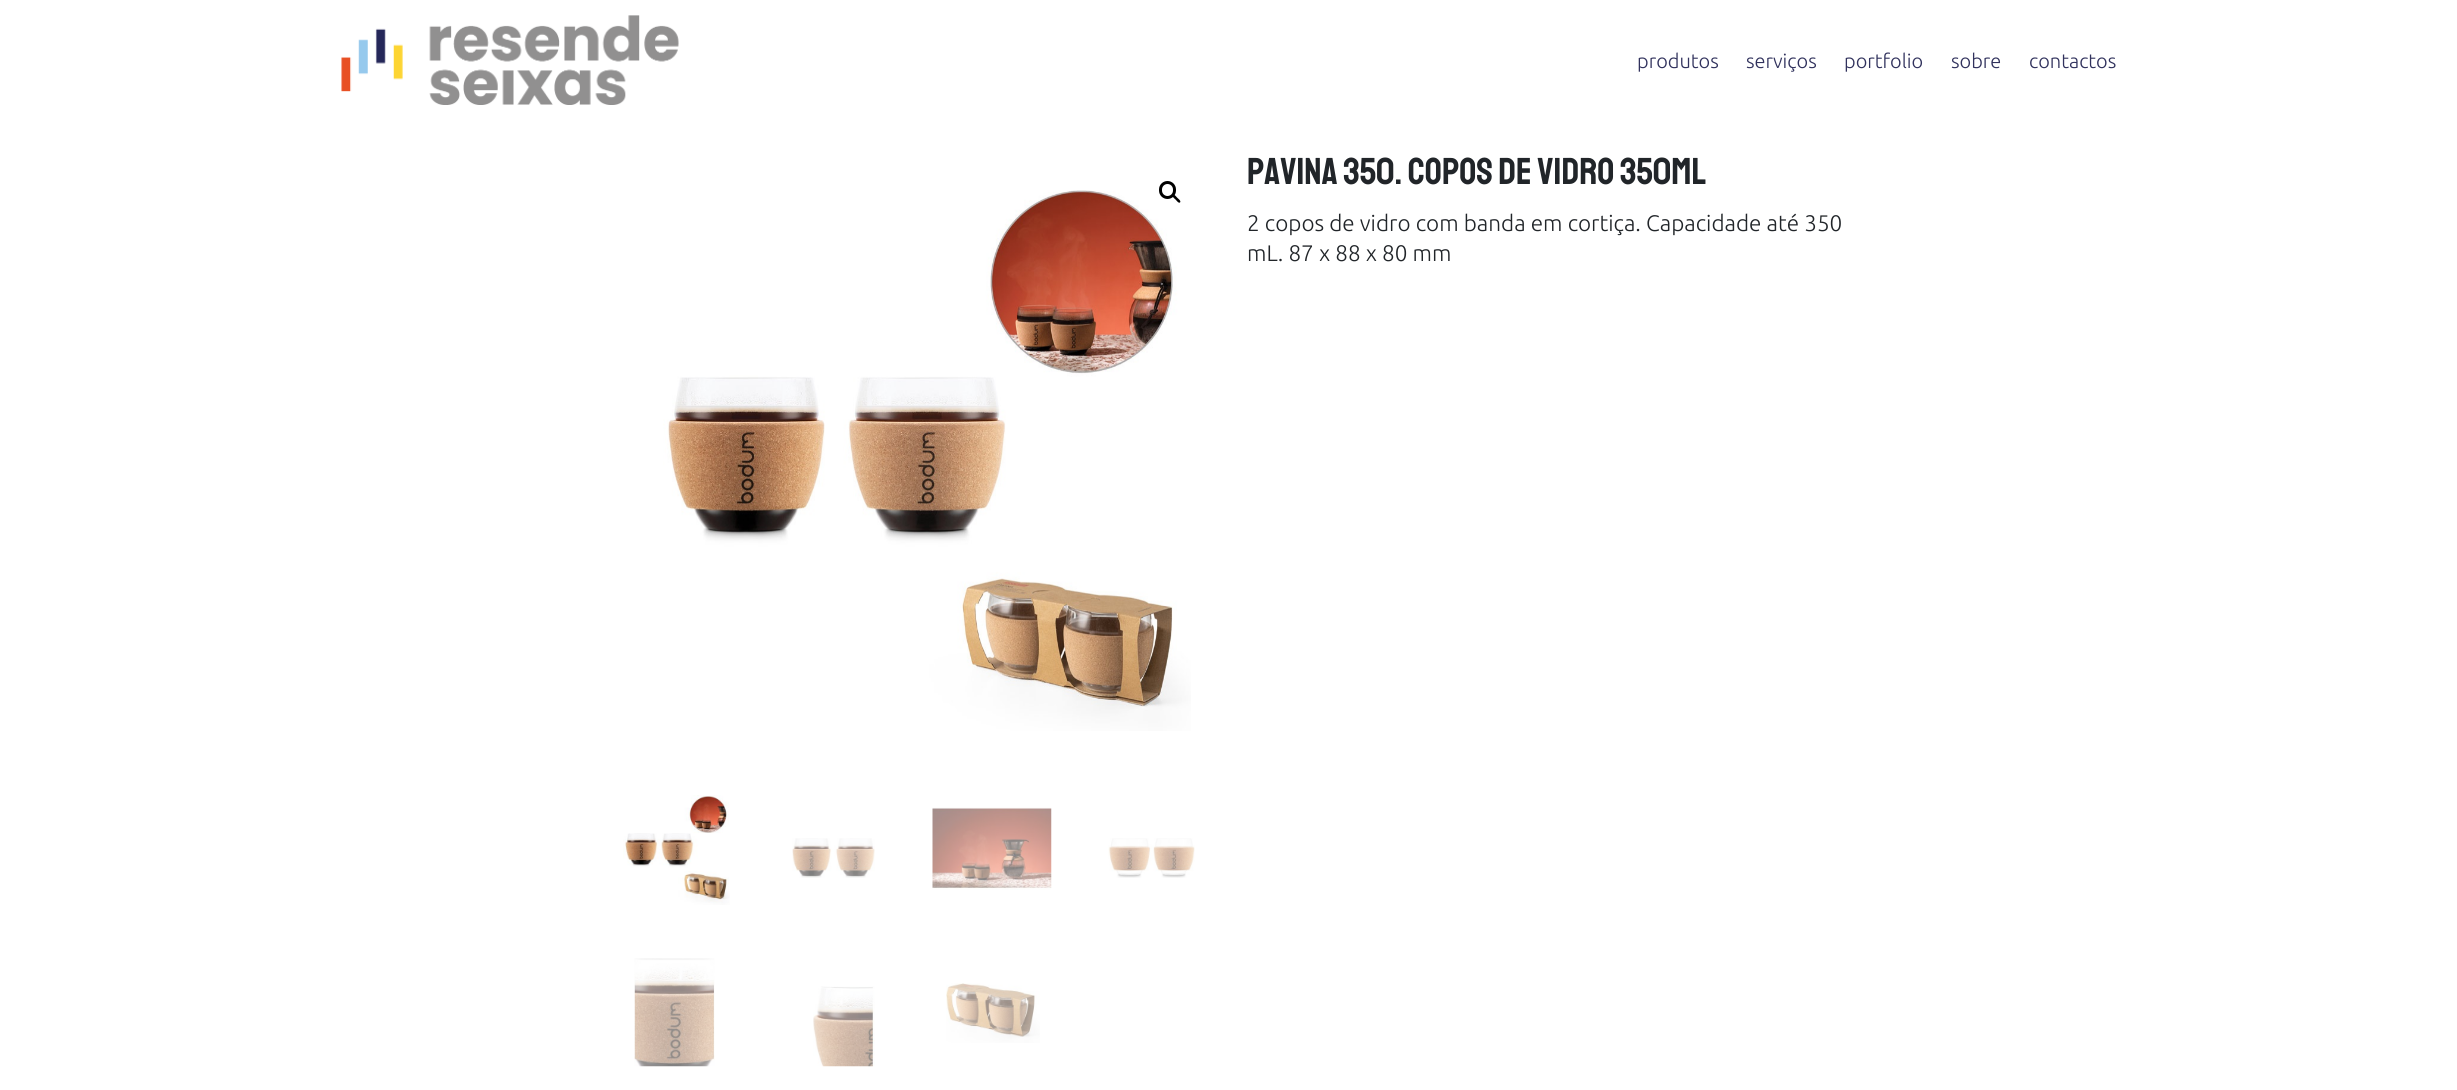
import math
import cairo

surface = cairo.ImageSurface(cairo.FORMAT_RGB24, 2457, 1090)
cr = cairo.Context(surface)
options = cairo.FontOptions()
options.set_hint_metrics(cairo.HINT_METRICS_OFF)
options.set_hint_style(cairo.HINT_STYLE_NONE)
cr.set_font_options(options)
cr.set_miter_limit(4)


def rgb(code):
    cr.set_source_rgb(*(v / 255 for v in bytes.fromhex(code[-6:])))


def rrect(x, y, w, h, r):
    cr.new_sub_path()
    for i, (u, v) in enumerate([(x + w - r, y + h - r), (x + r, y + h - r), (x + r, y + r), (x + w - r, y + r)]):
        cr.arc(u, v, r, i * math.pi / 2, (i + 1) * math.pi / 2)
    cr.close_path()


def image(path, x, y, w, h):
    cr.save()
    cr.set_source_surface(cairo.ImageSurface.create_from_png(path), x, y)
    cr.rectangle(x, y, w, h)
    cr.fill()
    cr.restore()


rgb("#ffffff")
cr.paint()
image("img/1.png", 341, 15, 338, 90)
image("img/2.png", 663, 190, 528, 541)
rrect(1160.5, 182.5, 14, 15, 7)
rgb("#000000")
cr.set_line_width(3)
cr.stroke()
cr.new_path()
cr.move_to(1173, 195)
cr.curve_to(1174.5, 194, 1176.5, 197, 1177.5, 198)
cr.curve_to(1178, 198.5, 1181.5, 201, 1180, 202.5)
cr.curve_to(1178.5, 203.5, 1176.5, 200.5, 1175.5, 199.5)
cr.curve_to(1175, 199, 1171.5, 196.5, 1173, 195)
cr.close_path()
cr.fill()
image("img/3.png", 623, 795, 107, 110)
image("img/4.png", 792, 838, 83, 40)
image("img/5.png", 932, 807, 120, 83)
image("img/6.png", 1108, 838, 87, 40)
image("img/7.png", 634, 958, 81, 109)
image("img/8.png", 813, 986, 62, 81)
image("img/9.png", 946, 983, 94, 60)
cr.select_font_face("Ubuntu Light")
cr.set_font_size(20)
rgb("#31325d")
for x, y, s in [
    (1637, 68, "produtos"),
    (1746, 68, "serviços"),
    (1844, 68, "portfolio"),
    (1951, 68, "sobre"),
    (2029, 68, "contactos"),
]:
    cr.move_to(x, y)
    cr.show_text(s)
cr.select_font_face("Staatliches")
cr.set_font_size(37.5)
rgb("#212529")
cr.move_to(1247, 184)
cr.show_text("PAVINA 350. Copos de vidro 350ml")
cr.select_font_face("Ubuntu Light")
cr.set_font_size(22.5)
cr.move_to(1247, 231)
cr.show_text("2 copos de vidro com banda em cortiça. Capacidade até 350")
cr.move_to(1247, 261)
cr.show_text("mL. 87 x 88 x 80 mm")
surface.write_to_png("page.png")
